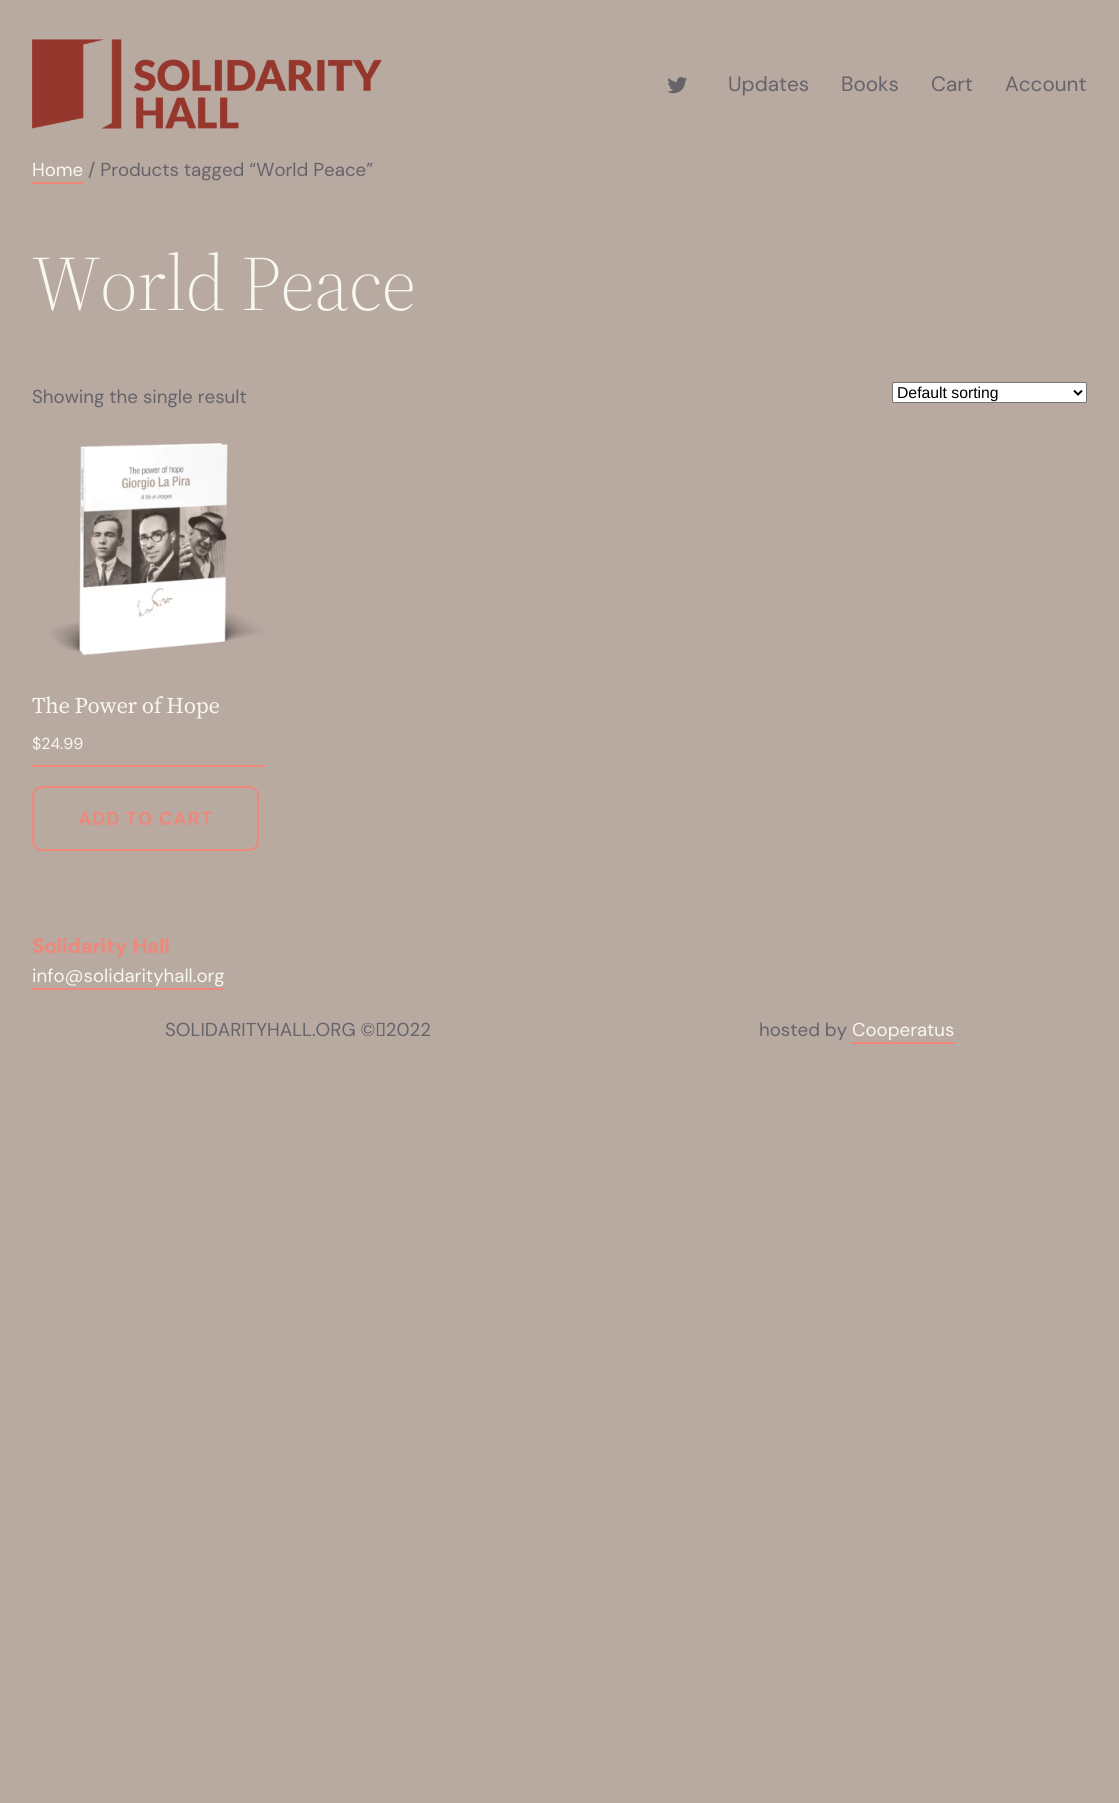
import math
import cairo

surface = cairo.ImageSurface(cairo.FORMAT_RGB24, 1119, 1803)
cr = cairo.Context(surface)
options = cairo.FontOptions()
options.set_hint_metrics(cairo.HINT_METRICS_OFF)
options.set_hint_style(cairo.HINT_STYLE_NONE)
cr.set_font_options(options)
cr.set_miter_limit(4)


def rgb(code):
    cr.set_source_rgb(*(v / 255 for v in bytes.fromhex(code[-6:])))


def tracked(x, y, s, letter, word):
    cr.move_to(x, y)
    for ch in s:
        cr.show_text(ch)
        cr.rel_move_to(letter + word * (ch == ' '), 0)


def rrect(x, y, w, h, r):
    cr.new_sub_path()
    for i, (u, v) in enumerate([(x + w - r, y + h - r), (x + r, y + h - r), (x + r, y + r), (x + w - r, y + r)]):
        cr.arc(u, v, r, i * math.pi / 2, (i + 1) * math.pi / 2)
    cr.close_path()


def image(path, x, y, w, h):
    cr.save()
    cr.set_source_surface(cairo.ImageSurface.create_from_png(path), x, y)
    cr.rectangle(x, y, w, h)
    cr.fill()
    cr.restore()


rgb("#b8a9a1")
cr.paint()
image("img/1.png", 32, 39, 350, 90)
image("img/2.png", 667, 77, 20, 17)
rgb("#ed887b")
cr.rectangle(32, 182, 51, 2)
cr.fill()
rgb("#ffffff")
rrect(892.5, 382.5, 194, 20, 1.5)
cr.fill_preserve()
rgb("#767676")
cr.set_line_width(1)
cr.stroke()
cr.new_path()
cr.move_to(1074, 390.5)
cr.line_to(1078, 394.5)
cr.line_to(1082, 390.5)
rgb("#000000")
cr.set_line_width(2)
cr.stroke()
rgb("#ed887b")
cr.rectangle(32, 765, 233, 2)
cr.fill()
image("img/3.png", 50, 442, 213, 214)
rrect(33, 787, 225, 63, 9)
cr.stroke()
cr.rectangle(32, 988, 192, 2)
cr.fill()
cr.rectangle(852, 1042, 103, 2)
cr.fill()
cr.select_font_face("DM Sans")
cr.set_font_size(20.75)
rgb("#66636a")
for x, y, s in [
    (728, 91, "Updates"),
    (841, 91, "Books"),
    (931, 91, "Cart"),
    (1005, 91, "Account"),
]:
    cr.move_to(x, y)
    cr.show_text(s)
cr.set_font_size(18.75)
rgb("#f8f7f1")
cr.move_to(32, 176)
cr.show_text("Home")
rgb("#66636a")
cr.move_to(88, 176)
cr.show_text("/ Products tagged “World Peace”")
cr.select_font_face("Source Serif 4 Light")
cr.set_font_size(77.5)
rgb("#f8f7f1")
tracked(32, 310, "World Peace", -0.75, 0)
cr.select_font_face("DM Sans")
cr.set_font_size(18.75)
rgb("#66636a")
cr.move_to(32, 403)
cr.show_text("Showing the single result")
cr.select_font_face("Liberation Sans")
cr.set_font_size(15.75)
rgb("#000000")
cr.move_to(897, 398)
cr.show_text("Default sorting")
cr.select_font_face("Source Serif 4")
cr.set_font_size(22.5)
rgb("#f8f7f1")
tracked(32, 713, "The Power of Hope", -0.25, 0)
cr.select_font_face("DM Sans")
cr.set_font_size(16)
cr.move_to(32, 749)
cr.show_text("$24.99")
cr.select_font_face("DM Sans", cairo.FONT_SLANT_NORMAL, cairo.FONT_WEIGHT_BOLD)
cr.set_font_size(18.75)
rgb("#ed887b")
tracked(78, 825, "ADD TO CART", 1, 0)
cr.select_font_face("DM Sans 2", cairo.FONT_SLANT_NORMAL, cairo.FONT_WEIGHT_BOLD)
cr.set_font_size(20.75)
tracked(32, 953, "Solidarity Hall", -0.25, 1)
cr.select_font_face("DM Sans")
cr.set_font_size(18.75)
rgb("#f8f7f1")
cr.move_to(32, 982)
cr.show_text("info@solidarityhall.org")
rgb("#66636a")
cr.move_to(165, 1036)
cr.show_text("SOLIDARITYHALL.ORG © 2022")
cr.move_to(759, 1036)
cr.show_text("hosted by")
rgb("#f8f7f1")
cr.move_to(852, 1036)
cr.show_text("Cooperatus")
surface.write_to_png("page.png")
